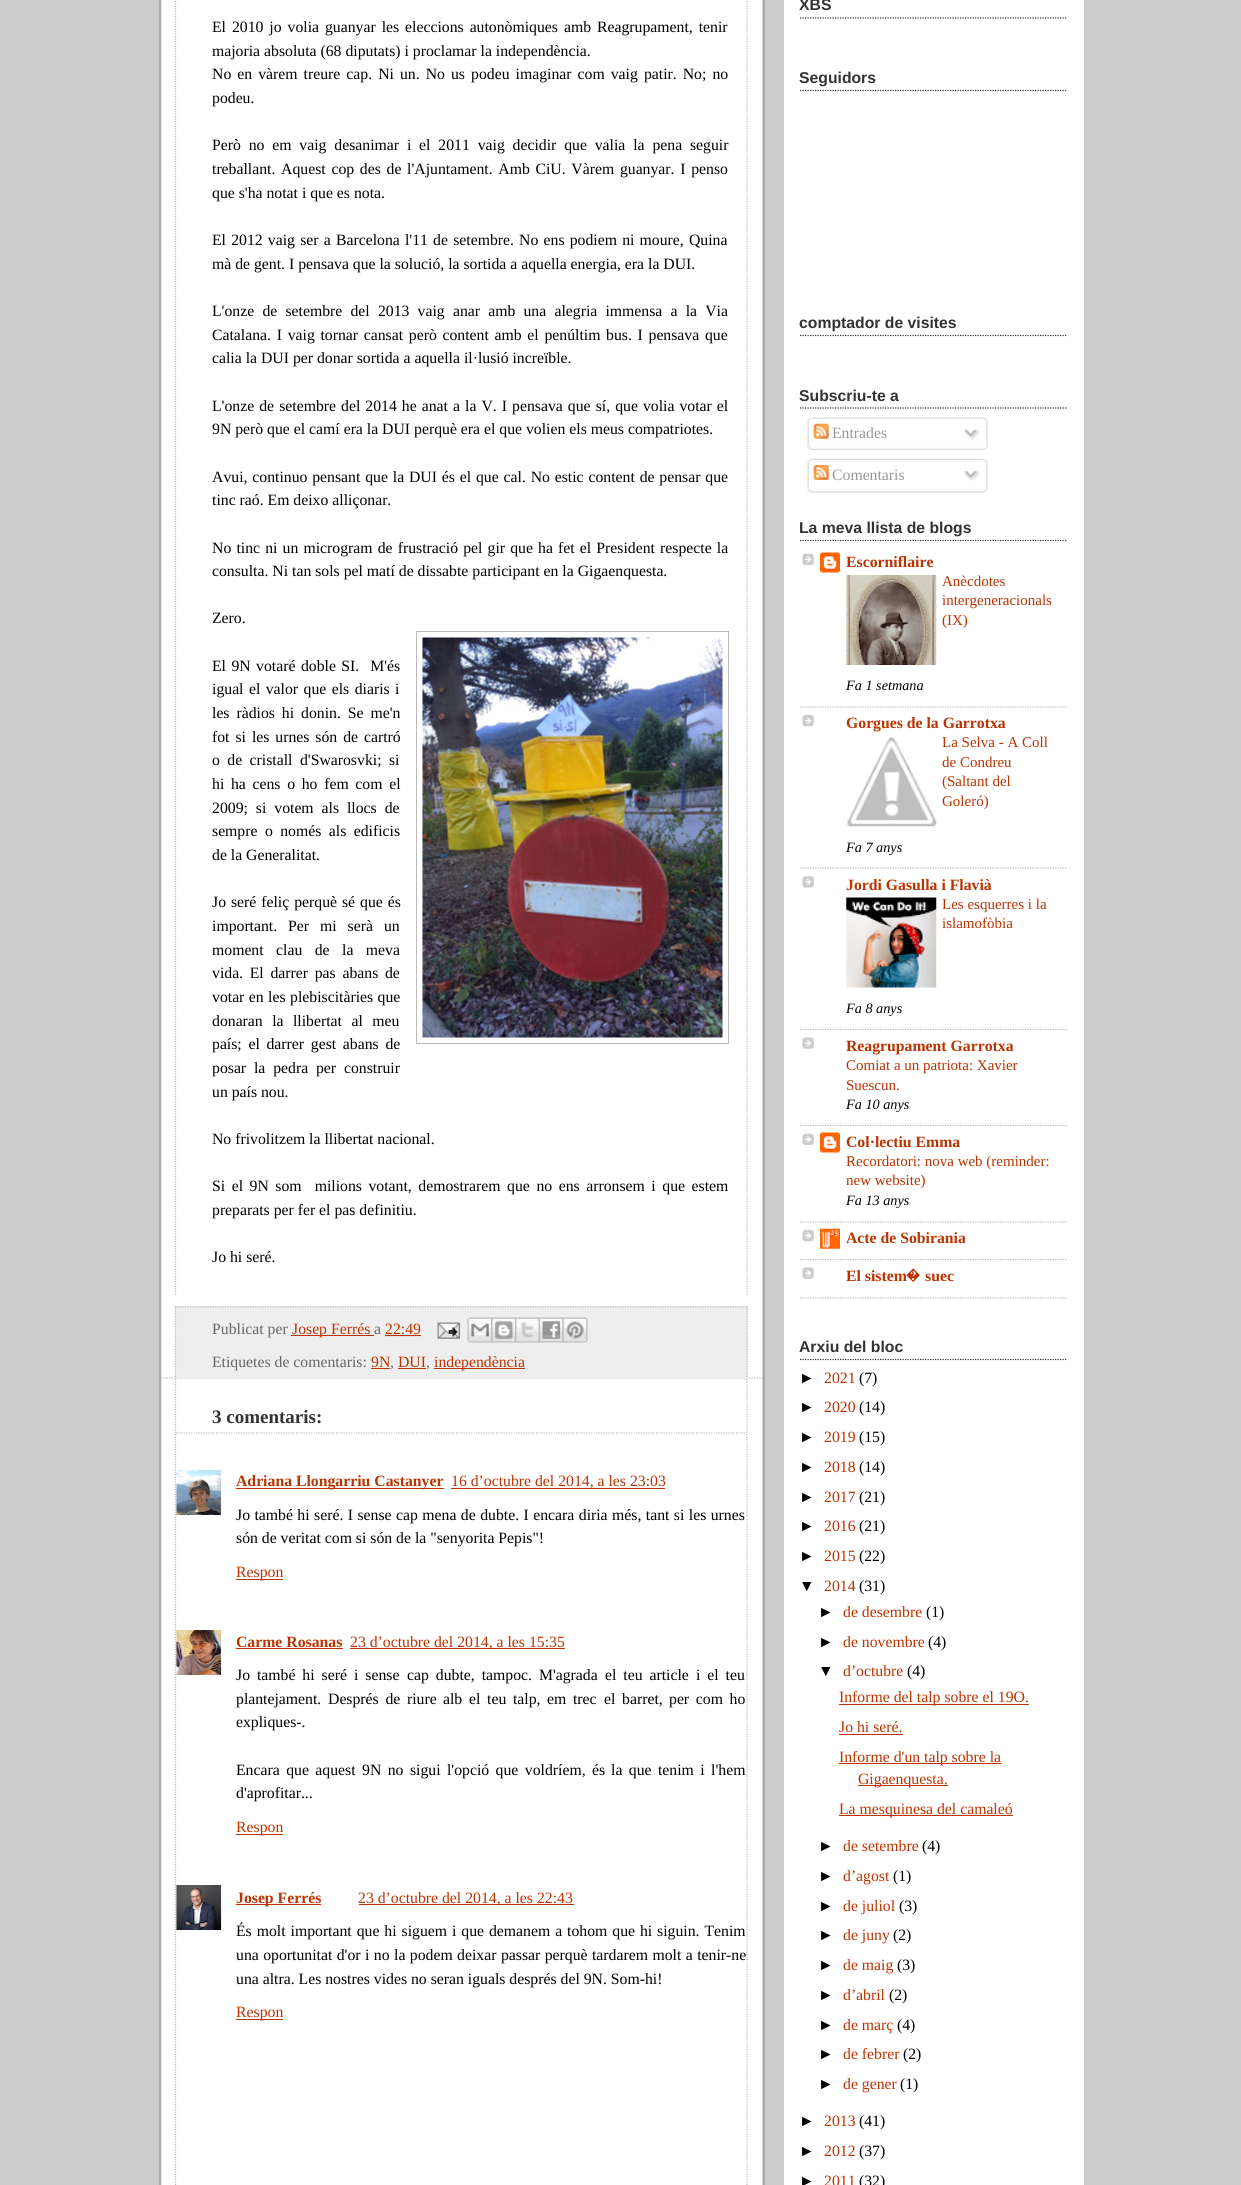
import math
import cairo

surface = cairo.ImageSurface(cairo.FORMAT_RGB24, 1241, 2185)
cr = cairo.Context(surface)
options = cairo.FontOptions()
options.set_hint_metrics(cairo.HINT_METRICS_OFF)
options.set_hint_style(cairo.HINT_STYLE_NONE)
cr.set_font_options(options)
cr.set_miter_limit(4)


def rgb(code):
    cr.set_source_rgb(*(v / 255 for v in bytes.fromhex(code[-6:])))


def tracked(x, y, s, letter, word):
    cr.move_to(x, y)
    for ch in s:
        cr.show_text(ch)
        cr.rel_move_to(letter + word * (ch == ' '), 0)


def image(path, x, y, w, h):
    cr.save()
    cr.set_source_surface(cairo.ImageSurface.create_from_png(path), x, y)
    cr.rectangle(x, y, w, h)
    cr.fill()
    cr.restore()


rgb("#cccccc")
cr.paint()
rgb("#ffffff")
cr.rectangle(161, 0, 602, 2185)
cr.fill()
image("img/1.png", 159, 0, 606, 2185)
cr.new_path()
cr.move_to(159, 1378)
cr.line_to(764, 1378)
rgb("#bbbbbb")
cr.set_line_width(1.2)
cr.set_dash([1.25, 1.25])
cr.stroke()
cr.new_path()
cr.move_to(747, -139)
cr.line_to(747, 1295)
cr.stroke()
cr.new_path()
cr.move_to(175.5, -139)
cr.line_to(175.5, 1295)
cr.stroke()
cr.rectangle(416.5, 631.5, 312, 412)
cr.set_line_width(1)
cr.set_dash([])
cr.stroke()
image("img/2.png", 422, 637, 301, 401)
rgb("#eeeeee")
cr.rectangle(175, 1306, 573, 72)
cr.fill()
cr.new_path()
cr.move_to(175, 1307)
cr.line_to(747.5, 1307)
rgb("#bbbbbb")
cr.set_line_width(1.2)
cr.set_dash([1.25, 1.25])
cr.stroke()
cr.new_path()
cr.move_to(747, 1306)
cr.line_to(747, 1377.5)
cr.stroke()
cr.new_path()
cr.move_to(175.5, 1306)
cr.line_to(175.5, 1377.5)
cr.stroke()
rgb("#bb3300")
cr.rectangle(291, 1335, 83, 1)
cr.fill()
cr.new_path()
cr.move_to(385, 1335.5)
cr.line_to(420.5, 1335.5)
cr.stroke()
cr.rectangle(385, 1335, 36, 1)
cr.fill()
image("img/3.png", 437, 1322, 23, 17)
image("img/4.png", 467, 1317, 26, 26)
image("img/5.png", 491, 1317, 26, 26)
image("img/6.png", 515, 1317, 25, 26)
image("img/7.png", 538, 1317, 26, 26)
image("img/8.png", 562, 1317, 26, 26)
for x, y, w, h, color in [
    (371, 1368, 19, 1, "#bb3300"),
    (398, 1368, 28, 1, "#bb3300"),
    (434, 1368, 91, 1, "#bb3300"),
]:
    rgb(color)
    cr.rectangle(x, y, w, h)
    cr.fill()
cr.new_path()
cr.move_to(747, 1379)
cr.line_to(747, 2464)
rgb("#bbbbbb")
cr.stroke()
cr.new_path()
cr.move_to(175.5, 1379)
cr.line_to(175.5, 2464)
cr.stroke()
cr.new_path()
cr.move_to(176, 1433)
cr.line_to(746, 1433)
cr.stroke()
image("img/9.png", 176, 1470, 46, 45)
for x, y, w, h, color in [
    (236, 1488, 208, 1, "#bb3300"),
    (451, 1488, 214, 1, "#bb3300"),
    (236, 1579, 47, 1, "#bb3300"),
]:
    rgb(color)
    cr.rectangle(x, y, w, h)
    cr.fill()
image("img/10.png", 176, 1630, 46, 45)
for x, y, w, h, color in [
    (236, 1648, 107, 1, "#bb3300"),
    (350, 1648, 215, 1, "#bb3300"),
    (236, 1834, 47, 1, "#bb3300"),
]:
    rgb(color)
    cr.rectangle(x, y, w, h)
    cr.fill()
image("img/11.png", 176, 1885, 46, 45)
for x, y, w, h, color in [
    (236, 1904, 85, 1, "#bb3300"),
    (359, 1904, 215, 1, "#bb3300"),
    (236, 2019, 47, 1, "#bb3300"),
    (784, 0, 300, 2185, "#ffffff"),
]:
    rgb(color)
    cr.rectangle(x, y, w, h)
    cr.fill()
cr.new_path()
cr.move_to(800, 18)
cr.line_to(1067.5, 18)
rgb("#333333")
cr.stroke()
cr.new_path()
cr.move_to(800, 90.5)
cr.line_to(1067.5, 90.5)
cr.stroke()
cr.new_path()
cr.move_to(800, 335.5)
cr.line_to(1067.5, 335.5)
cr.stroke()
cr.new_path()
cr.move_to(800, 408)
cr.line_to(1067.5, 408)
cr.stroke()
image("img/12.png", 807, 417, 181, 30)
image("img/13.png", 813, 423, 16, 16)
image("img/14.png", 964, 429, 16, 11)
image("img/15.png", 807, 446, 181, 4)
image("img/16.png", 807, 458, 181, 31)
image("img/17.png", 813, 465, 16, 15)
image("img/18.png", 964, 470, 16, 11)
image("img/19.png", 807, 489, 181, 4)
cr.new_path()
cr.move_to(800, 540.5)
cr.line_to(1067.5, 540.5)
cr.stroke()
image("img/20.png", 802, 553, 12, 12)
cr.new_path()
cr.move_to(800, 707)
cr.line_to(1067.5, 707)
rgb("#bbbbbb")
cr.stroke()
image("img/21.png", 820, 552, 20, 21)
image("img/22.png", 846, 575, 91, 90)
image("img/23.png", 802, 715, 12, 12)
cr.new_path()
cr.move_to(800, 868)
cr.line_to(1067.5, 868)
cr.stroke()
image("img/24.png", 847, 737, 90, 90)
image("img/25.png", 802, 876, 12, 12)
cr.new_path()
cr.move_to(800, 1029.5)
cr.line_to(1067.5, 1029.5)
cr.stroke()
image("img/26.png", 846, 897, 91, 91)
image("img/27.png", 802, 1037, 12, 12)
cr.new_path()
cr.move_to(800, 1125.5)
cr.line_to(1067.5, 1125.5)
cr.stroke()
image("img/20.png", 802, 1133, 12, 12)
cr.new_path()
cr.move_to(800, 1222)
cr.line_to(1067.5, 1222)
cr.stroke()
image("img/21.png", 820, 1132, 20, 21)
image("img/23.png", 802, 1230, 12, 12)
cr.new_path()
cr.move_to(800, 1259.5)
cr.line_to(1067.5, 1259.5)
cr.stroke()
image("img/28.png", 820, 1228, 20, 21)
image("img/27.png", 802, 1267, 12, 12)
cr.new_path()
cr.move_to(800, 1298)
cr.line_to(1067.5, 1298)
cr.stroke()
cr.new_path()
cr.move_to(800, 1359.5)
cr.line_to(1067.5, 1359.5)
rgb("#333333")
cr.stroke()
for x, y, w, h, color in [
    (839, 1704, 190, 1, "#bb3300"),
    (839, 1734, 64, 1, "#bb3300"),
    (839, 1763, 162, 1, "#bb3300"),
    (858, 1785, 90, 1, "#bb3300"),
    (839, 1815, 174, 1, "#bb3300"),
]:
    rgb(color)
    cr.rectangle(x, y, w, h)
    cr.fill()
cr.select_font_face("Liberation Serif")
cr.set_font_size(15.75)
rgb("#000000")
tracked(212, 32, "El 2010 jo volia guanyar les eleccions autonòmiques amb Reagrupament, tenir", 0, 2)
cr.move_to(212, 56)
cr.show_text("majoria absoluta (68 diputats) i proclamar la independència.")
tracked(212, 79, "No en vàrem treure cap. Ni un. No us podeu imaginar com vaig patir. No; no", 0, 2.1)
cr.move_to(212, 103)
cr.show_text("podeu.")
tracked(212, 150, "Però no em vaig desanimar i el 2011 vaig decidir que valia la pena seguir", 0, 3.9)
tracked(212, 174, "treballant. Aquest cop des de l'Ajuntament. Amb CiU. Vàrem guanyar. I penso", 0, 1.75)
cr.move_to(212, 198)
cr.show_text("que s'ha notat i que es nota.")
tracked(212, 245, "El 2012 vaig ser a Barcelona l'11 de setembre. No ens podiem ni moure, Quina", 0, 1.25)
cr.move_to(212, 269)
cr.show_text("mà de gent. I pensava que la solució, la sortida a aquella energia, era la DUI.")
tracked(212, 316, "L'onze de setembre del 2013 vaig anar amb una alegria immensa a la Via", 0, 4.25)
tracked(212, 340, "Catalana. I vaig tornar cansat però content amb el penúltim bus. I pensava que", 0, 1.75)
cr.move_to(212, 363)
cr.show_text("calia la DUI per donar sortida a aquella il·lusió increïble.")
tracked(212, 411, "L'onze de setembre del 2014 he anat a la V. I pensava que sí, que volia votar el", 0, 1.1)
cr.move_to(212, 434)
cr.show_text("9N però que el camí era la DUI perquè era el que volien els meus compatriotes.")
tracked(212, 482, "Avui, continuo pensant que la DUI és el que cal. No estic content de pensar que", 0, 0.9)
cr.move_to(212, 505)
cr.show_text("tinc raó. Em deixo alliçonar.")
tracked(212, 553, "No tinc ni un microgram de frustració pel gir que ha fet el President respecte la", 0, 1.2)
cr.move_to(212, 576)
cr.show_text("consulta. Ni tan sols pel matí de dissabte participant en la Gigaenquesta.")
cr.move_to(212, 623)
cr.show_text("Zero.")
tracked(212, 671, "El 9N votaré doble SI.  M'és", 0, 1.5)
tracked(212, 694, "igual el valor que els diaris i", 0, 1.5)
tracked(212, 718, "les ràdios hi donin. Se me'n", 0, 3)
tracked(212, 742, "fot si les urnes són de cartró", 0, 2)
tracked(212, 765, "o de cristall d'Swarosvki; si", 0, 3.5)
tracked(212, 789, "hi ha cens o ho fem com el", 0, 2.75)
tracked(212, 813, "2009; si votem als llocs de", 0, 4)
tracked(212, 836, "sempre o només als edificis", 0, 3.5)
cr.move_to(212, 860)
cr.show_text("de la Generalitat.")
tracked(212, 907, "Jo seré feliç perquè sé que és", 0, 1)
tracked(212, 931, "important. Per mi serà un", 0, 7)
tracked(212, 955, "moment clau de la meva", 0, 8.5)
tracked(212, 978, "vida. El darrer pas abans de", 0, 2.75)
tracked(212, 1002, "votar en les plebiscitàries que", 0, 0.5)
tracked(212, 1026, "donaran la llibertat al meu", 0, 5.5)
tracked(212, 1049, "país; el darrer gest abans de", 0, 2.75)
tracked(212, 1073, "posar la pedra per construir", 0, 3.9)
cr.move_to(212, 1097)
cr.show_text("un país nou.")
cr.move_to(212, 1144)
cr.show_text("No frivolitzem la llibertat nacional.")
tracked(212, 1191, "Si el 9N som  milions votant, demostrarem que no ens arronsem i que estem", 0, 2.6)
cr.move_to(212, 1215)
cr.show_text("preparats per fer el pas definitiu.")
cr.move_to(212, 1262)
cr.show_text("Jo hi seré.")
rgb("#666666")
cr.move_to(212, 1334)
cr.show_text("Publicat per")
rgb("#bb3300")
cr.move_to(292, 1334)
cr.show_text("Josep Ferrés")
rgb("#666666")
cr.move_to(374, 1334)
cr.show_text("a")
rgb("#bb3300")
cr.move_to(385, 1334)
cr.show_text("22:49")
rgb("#666666")
cr.move_to(212, 1367)
cr.show_text("Etiquetes de comentaris:")
rgb("#bb3300")
cr.move_to(371, 1367)
cr.show_text("9N")
rgb("#666666")
cr.move_to(390, 1367)
cr.show_text(",")
rgb("#bb3300")
cr.move_to(398, 1367)
cr.show_text("DUI")
rgb("#666666")
cr.move_to(426, 1367)
cr.show_text(",")
rgb("#bb3300")
cr.move_to(434, 1367)
cr.show_text("independència")
cr.select_font_face("Liberation Serif", cairo.FONT_SLANT_NORMAL, cairo.FONT_WEIGHT_BOLD)
cr.set_font_size(19)
rgb("#333333")
cr.move_to(212, 1423)
cr.show_text("3 comentaris:")
cr.set_font_size(15.75)
rgb("#bb3300")
cr.move_to(236, 1486)
cr.show_text("Adriana Llongarriu Castanyer")
cr.select_font_face("Liberation Serif")
cr.move_to(451, 1486)
cr.show_text("16 d’octubre del 2014, a les 23:03")
rgb("#000000")
tracked(236, 1520, "Jo també hi seré. I sense cap mena de dubte. I encara diria més, tant si les urnes", 0, 0.5)
cr.move_to(236, 1543)
cr.show_text("són de veritat com si són de la \"senyorita Pepis\"!")
rgb("#bb3300")
cr.move_to(236, 1577)
cr.show_text("Respon")
cr.select_font_face("Liberation Serif", cairo.FONT_SLANT_NORMAL, cairo.FONT_WEIGHT_BOLD)
cr.move_to(236, 1647)
cr.show_text("Carme Rosanas")
cr.select_font_face("Liberation Serif")
cr.move_to(350, 1647)
cr.show_text("23 d’octubre del 2014, a les 15:35")
rgb("#000000")
for x, y, s in [
    (236, 1680, "Jo també hi seré"),
    (354, 1680, "i sense"),
    (407, 1680, "cap dubte, tampoc. M'agrada"),
    (605, 1680, "el teu article"),
    (696, 1680, "i el teu"),
]:
    tracked(x, y, s, 0, 3)
cr.move_to(236, 1704)
cr.show_text("plantejament.")
tracked(328, 1704, "Després de riure", 0, 2.75)
cr.move_to(443, 1704)
cr.show_text("alb")
for x, y, s in [
    (469, 1704, "el teu talp,"),
    (547, 1704, "em trec"),
    (604, 1704, "el barret,"),
    (669, 1704, "per com ho"),
]:
    tracked(x, y, s, 0, 2.75)
cr.move_to(236, 1727)
cr.show_text("expliques-.")
tracked(236, 1775, "Encara que aquest 9N no sigui l'opció que voldríem,", 0, 2.5)
cr.move_to(592, 1775)
cr.show_text("és")
tracked(611, 1775, "la que tenim i l'hem", 0, 2.5)
cr.move_to(236, 1798)
cr.show_text("d'aprofitar...")
rgb("#bb3300")
cr.move_to(236, 1832)
cr.show_text("Respon")
cr.select_font_face("Liberation Serif", cairo.FONT_SLANT_NORMAL, cairo.FONT_WEIGHT_BOLD)
cr.move_to(236, 1903)
cr.show_text("Josep Ferrés")
cr.select_font_face("Liberation Serif")
cr.move_to(358, 1903)
cr.show_text("23 d’octubre del 2014, a les 22:43")
rgb("#000000")
tracked(236, 1936, "És molt important que hi siguem i que demanem a tohom que hi siguin. Tenim", 0, 1)
tracked(236, 1960, "una oportunitat d'or i no la podem deixar passar perquè tardarem molt a tenir-ne", 0, 0.5)
cr.move_to(236, 1984)
cr.show_text("una altra. Les nostres vides no seran iguals després del 9N. Som-hi!")
rgb("#bb3300")
cr.move_to(236, 2017)
cr.show_text("Respon")
cr.select_font_face("Liberation Sans", cairo.FONT_SLANT_NORMAL, cairo.FONT_WEIGHT_BOLD)
rgb("#333333")
for x, y, s in [
    (799, 10, "XBS"),
    (799, 83, "Seguidors"),
    (799, 328, "comptador de visites"),
    (799, 401, "Subscriu-te a"),
]:
    cr.move_to(x, y)
    cr.show_text(s)
cr.select_font_face("Liberation Serif")
rgb("#999999")
cr.move_to(832, 438)
cr.show_text("Entrades")
cr.move_to(832, 480)
cr.show_text("Comentaris")
cr.select_font_face("Liberation Sans", cairo.FONT_SLANT_NORMAL, cairo.FONT_WEIGHT_BOLD)
rgb("#333333")
cr.move_to(799, 533)
cr.show_text("La meva llista de blogs")
cr.select_font_face("Liberation Serif", cairo.FONT_SLANT_NORMAL, cairo.FONT_WEIGHT_BOLD)
rgb("#bb3300")
cr.move_to(846, 567)
cr.show_text("Escorniflaire")
cr.select_font_face("Liberation Serif")
cr.set_font_size(15)
for x, y, s in [
    (942, 586, "Anècdotes"),
    (942, 605, "intergeneracionals"),
    (942, 625, "(IX)"),
]:
    cr.move_to(x, y)
    cr.show_text(s)
cr.select_font_face("Liberation Serif", cairo.FONT_SLANT_ITALIC)
cr.set_font_size(14.25)
rgb("#000000")
cr.move_to(846, 690)
cr.show_text("Fa 1 setmana")
cr.select_font_face("Liberation Serif", cairo.FONT_SLANT_NORMAL, cairo.FONT_WEIGHT_BOLD)
cr.set_font_size(15.75)
rgb("#bb3300")
cr.move_to(846, 728)
cr.show_text("Gorgues de la Garrotxa")
cr.select_font_face("Liberation Serif")
cr.set_font_size(15)
for x, y, s in [
    (942, 747, "La Selva - A Coll"),
    (942, 767, "de Condreu"),
    (942, 786, "(Saltant del"),
    (942, 806, "Goleró)"),
]:
    cr.move_to(x, y)
    cr.show_text(s)
cr.select_font_face("Liberation Serif", cairo.FONT_SLANT_ITALIC)
cr.set_font_size(14.25)
rgb("#000000")
cr.move_to(846, 852)
cr.show_text("Fa 7 anys")
cr.select_font_face("Liberation Serif", cairo.FONT_SLANT_NORMAL, cairo.FONT_WEIGHT_BOLD)
cr.set_font_size(15.75)
rgb("#bb3300")
cr.move_to(846, 890)
cr.show_text("Jordi Gasulla i Flavià")
cr.select_font_face("Liberation Serif")
cr.set_font_size(15)
cr.move_to(942, 909)
cr.show_text("Les esquerres i la")
cr.move_to(942, 928)
cr.show_text("islamofòbia")
cr.select_font_face("Liberation Serif", cairo.FONT_SLANT_ITALIC)
cr.set_font_size(14.25)
rgb("#000000")
cr.move_to(846, 1013)
cr.show_text("Fa 8 anys")
cr.select_font_face("Liberation Serif", cairo.FONT_SLANT_NORMAL, cairo.FONT_WEIGHT_BOLD)
cr.set_font_size(15.75)
rgb("#bb3300")
cr.move_to(846, 1051)
cr.show_text("Reagrupament Garrotxa")
cr.select_font_face("Liberation Serif")
cr.set_font_size(15)
cr.move_to(846, 1070)
cr.show_text("Comiat a un patriota: Xavier")
cr.move_to(846, 1090)
cr.show_text("Suescun.")
cr.select_font_face("Liberation Serif", cairo.FONT_SLANT_ITALIC)
cr.set_font_size(14.25)
rgb("#000000")
cr.move_to(846, 1109)
cr.show_text("Fa 10 anys")
cr.select_font_face("Liberation Serif", cairo.FONT_SLANT_NORMAL, cairo.FONT_WEIGHT_BOLD)
cr.set_font_size(15.75)
rgb("#bb3300")
cr.move_to(846, 1147)
cr.show_text("Col·lectiu Emma")
cr.select_font_face("Liberation Serif")
cr.set_font_size(15)
cr.move_to(846, 1166)
cr.show_text("Recordatori: nova web (reminder:")
cr.move_to(846, 1185)
cr.show_text("new website)")
cr.select_font_face("Liberation Serif", cairo.FONT_SLANT_ITALIC)
cr.set_font_size(14.25)
rgb("#000000")
cr.move_to(846, 1205)
cr.show_text("Fa 13 anys")
cr.select_font_face("Liberation Serif", cairo.FONT_SLANT_NORMAL, cairo.FONT_WEIGHT_BOLD)
cr.set_font_size(15.75)
rgb("#bb3300")
cr.move_to(846, 1243)
cr.show_text("Acte de Sobirania")
cr.move_to(846, 1281)
cr.show_text("El sistem")
cr.select_font_face("FreeSerif", cairo.FONT_SLANT_NORMAL, cairo.FONT_WEIGHT_BOLD)
cr.move_to(906, 1281)
cr.show_text("�")
cr.select_font_face("Liberation Serif", cairo.FONT_SLANT_NORMAL, cairo.FONT_WEIGHT_BOLD)
cr.move_to(925, 1281)
cr.show_text("suec")
cr.select_font_face("Liberation Sans", cairo.FONT_SLANT_NORMAL, cairo.FONT_WEIGHT_BOLD)
rgb("#333333")
cr.move_to(799, 1352)
cr.show_text("Arxiu del bloc")
cr.select_font_face("Liberation Sans")
rgb("#000000")
cr.move_to(799, 1383)
cr.show_text("►")
cr.select_font_face("Liberation Serif")
rgb("#bb3300")
cr.move_to(824, 1383)
cr.show_text("2021")
rgb("#000000")
cr.move_to(859, 1383)
cr.show_text("(7)")
cr.select_font_face("Liberation Sans")
cr.move_to(799, 1412)
cr.show_text("►")
cr.select_font_face("Liberation Serif")
rgb("#bb3300")
cr.move_to(824, 1412)
cr.show_text("2020")
rgb("#000000")
cr.move_to(859, 1412)
cr.show_text("(14)")
cr.select_font_face("Liberation Sans")
cr.move_to(799, 1442)
cr.show_text("►")
cr.select_font_face("Liberation Serif")
rgb("#bb3300")
cr.move_to(824, 1442)
cr.show_text("2019")
rgb("#000000")
cr.move_to(859, 1442)
cr.show_text("(15)")
cr.select_font_face("Liberation Sans")
cr.move_to(799, 1472)
cr.show_text("►")
cr.select_font_face("Liberation Serif")
rgb("#bb3300")
cr.move_to(824, 1472)
cr.show_text("2018")
rgb("#000000")
cr.move_to(859, 1472)
cr.show_text("(14)")
cr.select_font_face("Liberation Sans")
cr.move_to(799, 1502)
cr.show_text("►")
cr.select_font_face("Liberation Serif")
rgb("#bb3300")
cr.move_to(824, 1502)
cr.show_text("2017")
rgb("#000000")
cr.move_to(859, 1502)
cr.show_text("(21)")
cr.select_font_face("Liberation Sans")
cr.move_to(799, 1531)
cr.show_text("►")
cr.select_font_face("Liberation Serif")
rgb("#bb3300")
cr.move_to(824, 1531)
cr.show_text("2016")
rgb("#000000")
cr.move_to(859, 1531)
cr.show_text("(21)")
cr.select_font_face("Liberation Sans")
cr.move_to(799, 1561)
cr.show_text("►")
cr.select_font_face("Liberation Serif")
rgb("#bb3300")
cr.move_to(824, 1561)
cr.show_text("2015")
rgb("#000000")
cr.move_to(859, 1561)
cr.show_text("(22)")
cr.select_font_face("Liberation Sans")
cr.move_to(799, 1591)
cr.show_text("▼")
cr.select_font_face("Liberation Serif")
rgb("#bb3300")
cr.move_to(824, 1591)
cr.show_text("2014")
rgb("#000000")
cr.move_to(859, 1591)
cr.show_text("(31)")
cr.select_font_face("Liberation Sans")
cr.move_to(818, 1617)
cr.show_text("►")
cr.select_font_face("Liberation Serif")
rgb("#bb3300")
cr.move_to(843, 1617)
cr.show_text("de desembre")
rgb("#000000")
cr.move_to(926, 1617)
cr.show_text("(1)")
cr.select_font_face("Liberation Sans")
cr.move_to(818, 1647)
cr.show_text("►")
cr.select_font_face("Liberation Serif")
rgb("#bb3300")
cr.move_to(843, 1647)
cr.show_text("de novembre")
rgb("#000000")
cr.move_to(928, 1647)
cr.show_text("(4)")
cr.select_font_face("Liberation Sans")
cr.move_to(818, 1676)
cr.show_text("▼")
cr.select_font_face("Liberation Serif")
rgb("#bb3300")
cr.move_to(843, 1676)
cr.show_text("d’octubre")
rgb("#000000")
cr.move_to(907, 1676)
cr.show_text("(4)")
rgb("#bb3300")
for x, y, s in [
    (839, 1702, "Informe del talp sobre el 19O."),
    (839, 1732, "Jo hi seré."),
    (839, 1762, "Informe d'un talp sobre la"),
    (858, 1784, "Gigaenquesta."),
    (839, 1814, "La mesquinesa del camaleó"),
]:
    cr.move_to(x, y)
    cr.show_text(s)
cr.select_font_face("Liberation Sans")
rgb("#000000")
cr.move_to(818, 1851)
cr.show_text("►")
cr.select_font_face("Liberation Serif")
rgb("#bb3300")
cr.move_to(843, 1851)
cr.show_text("de setembre")
rgb("#000000")
cr.move_to(922, 1851)
cr.show_text("(4)")
cr.select_font_face("Liberation Sans")
cr.move_to(818, 1881)
cr.show_text("►")
cr.select_font_face("Liberation Serif")
rgb("#bb3300")
cr.move_to(843, 1881)
cr.show_text("d’agost")
rgb("#000000")
cr.move_to(893, 1881)
cr.show_text("(1)")
cr.select_font_face("Liberation Sans")
cr.move_to(818, 1911)
cr.show_text("►")
cr.select_font_face("Liberation Serif")
rgb("#bb3300")
cr.move_to(843, 1911)
cr.show_text("de juliol")
rgb("#000000")
cr.move_to(899, 1911)
cr.show_text("(3)")
cr.select_font_face("Liberation Sans")
cr.move_to(818, 1940)
cr.show_text("►")
cr.select_font_face("Liberation Serif")
rgb("#bb3300")
cr.move_to(843, 1940)
cr.show_text("de juny")
rgb("#000000")
cr.move_to(893, 1940)
cr.show_text("(2)")
cr.select_font_face("Liberation Sans")
cr.move_to(818, 1970)
cr.show_text("►")
cr.select_font_face("Liberation Serif")
rgb("#bb3300")
cr.move_to(843, 1970)
cr.show_text("de maig")
rgb("#000000")
cr.move_to(897, 1970)
cr.show_text("(3)")
cr.select_font_face("Liberation Sans")
cr.move_to(818, 2000)
cr.show_text("►")
cr.select_font_face("Liberation Serif")
rgb("#bb3300")
cr.move_to(843, 2000)
cr.show_text("d’abril")
rgb("#000000")
cr.move_to(889, 2000)
cr.show_text("(2)")
cr.select_font_face("Liberation Sans")
cr.move_to(818, 2030)
cr.show_text("►")
cr.select_font_face("Liberation Serif")
rgb("#bb3300")
cr.move_to(843, 2030)
cr.show_text("de març")
rgb("#000000")
cr.move_to(897, 2030)
cr.show_text("(4)")
cr.select_font_face("Liberation Sans")
cr.move_to(818, 2059)
cr.show_text("►")
cr.select_font_face("Liberation Serif")
rgb("#bb3300")
cr.move_to(843, 2059)
cr.show_text("de febrer")
rgb("#000000")
cr.move_to(903, 2059)
cr.show_text("(2)")
cr.select_font_face("Liberation Sans")
cr.move_to(818, 2089)
cr.show_text("►")
cr.select_font_face("Liberation Serif")
rgb("#bb3300")
cr.move_to(843, 2089)
cr.show_text("de gener")
rgb("#000000")
cr.move_to(900, 2089)
cr.show_text("(1)")
cr.select_font_face("Liberation Sans")
cr.move_to(799, 2126)
cr.show_text("►")
cr.select_font_face("Liberation Serif")
rgb("#bb3300")
cr.move_to(824, 2126)
cr.show_text("2013")
rgb("#000000")
cr.move_to(859, 2126)
cr.show_text("(41)")
cr.select_font_face("Liberation Sans")
cr.move_to(799, 2156)
cr.show_text("►")
cr.select_font_face("Liberation Serif")
rgb("#bb3300")
cr.move_to(824, 2156)
cr.show_text("2012")
rgb("#000000")
cr.move_to(859, 2156)
cr.show_text("(37)")
cr.select_font_face("Liberation Sans")
cr.move_to(799, 2186)
cr.show_text("►")
cr.select_font_face("Liberation Serif")
rgb("#bb3300")
cr.move_to(824, 2186)
cr.show_text("2011")
rgb("#000000")
cr.move_to(859, 2186)
cr.show_text("(32)")
surface.write_to_png("page.png")
